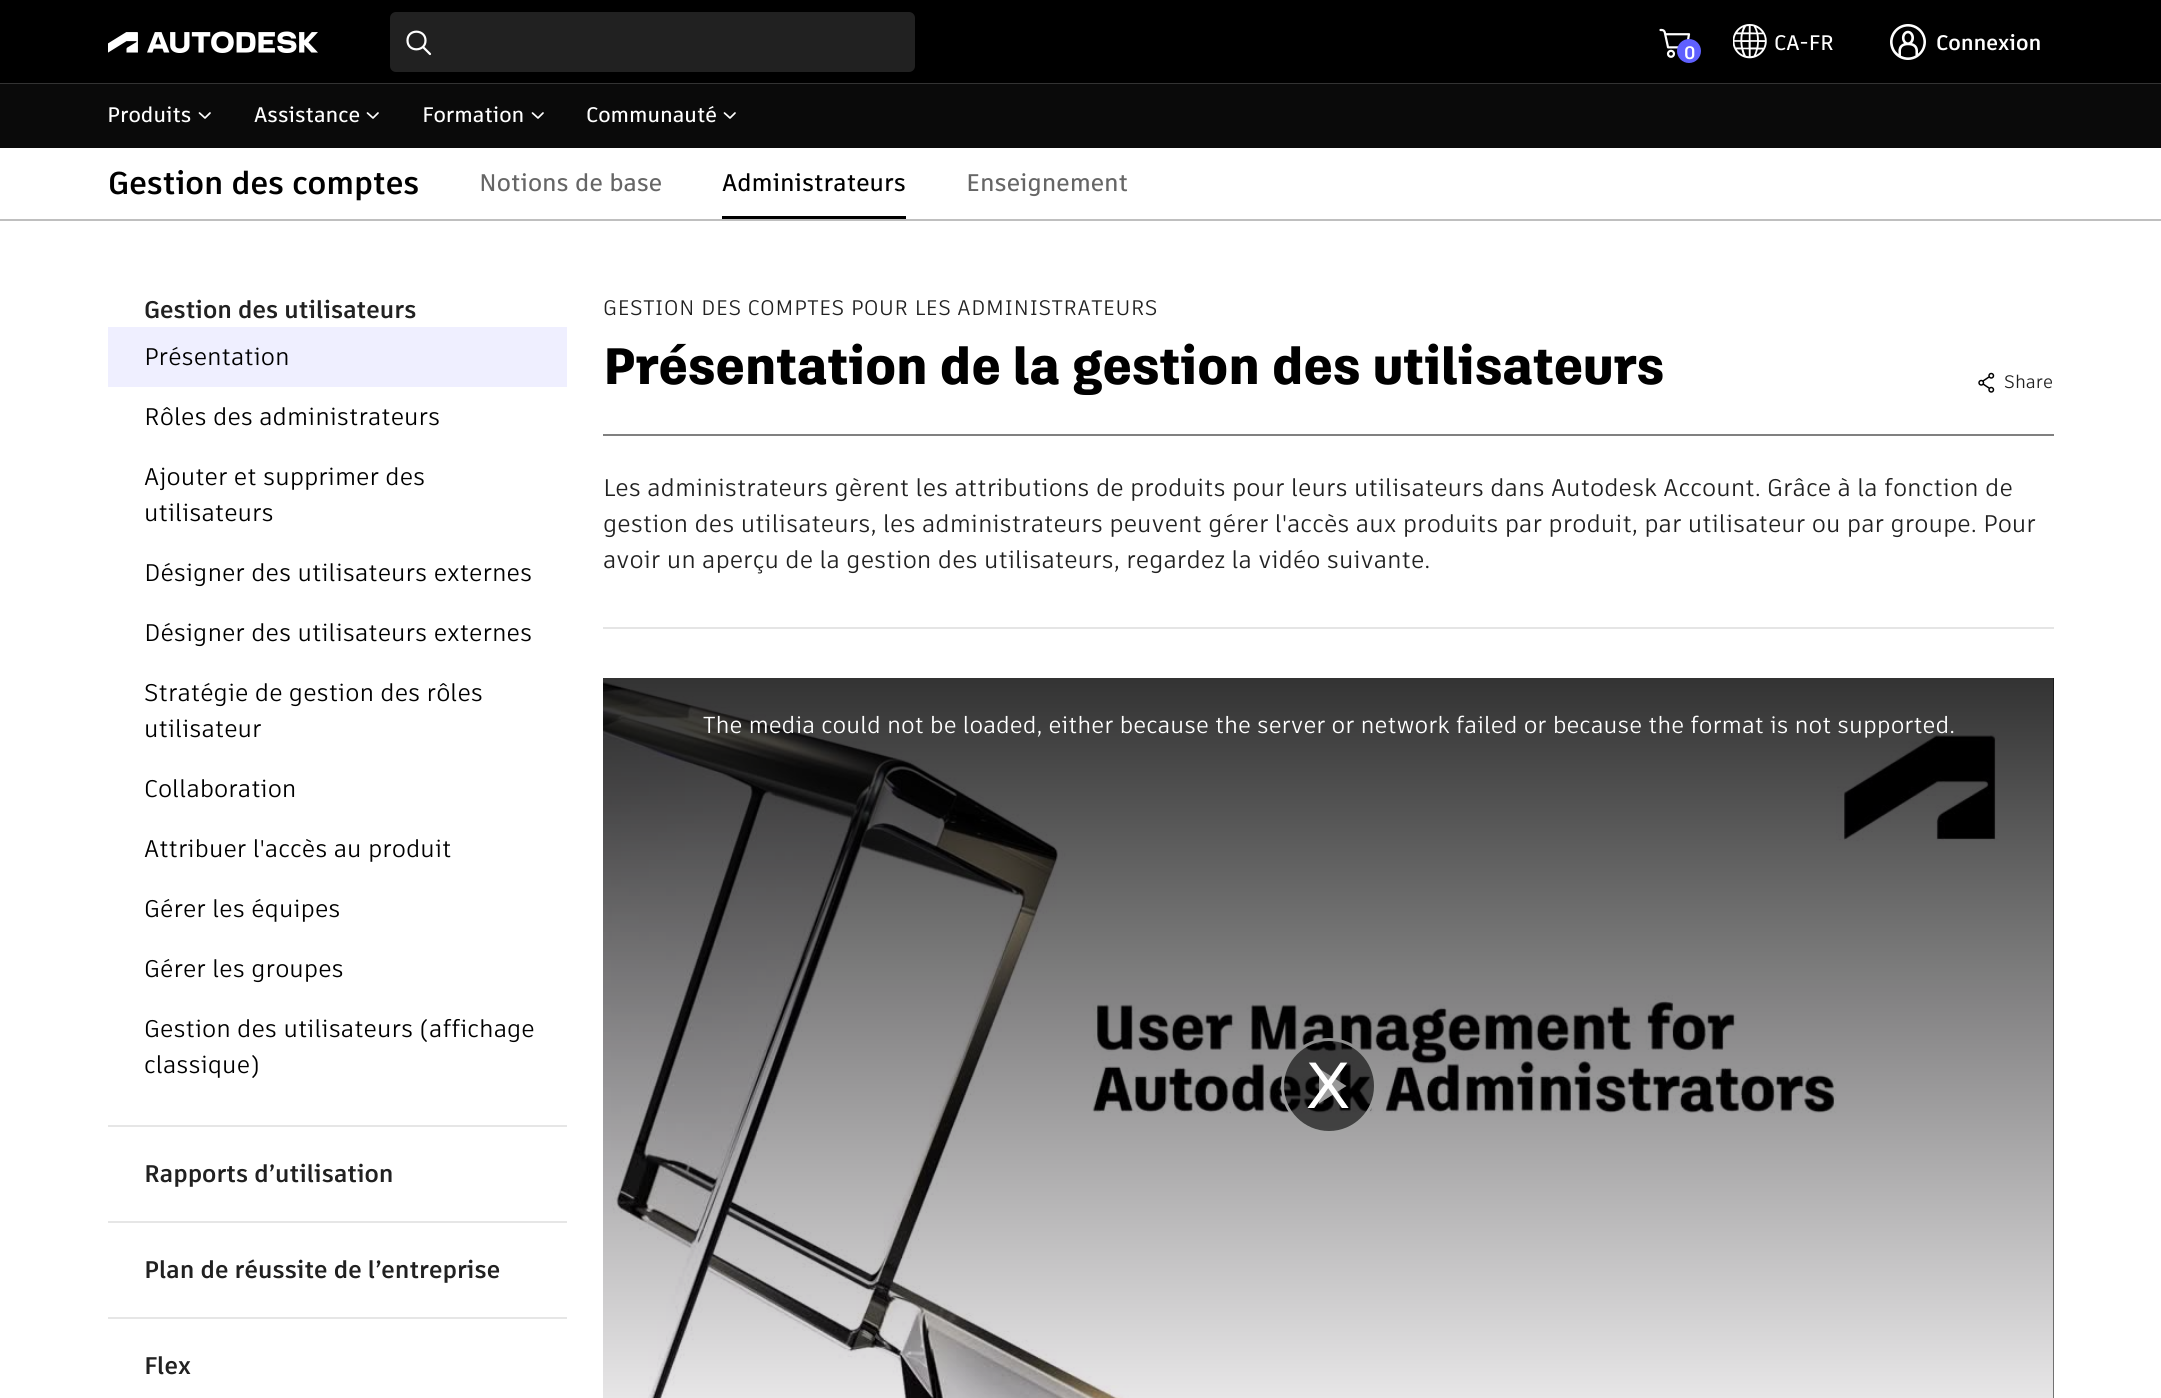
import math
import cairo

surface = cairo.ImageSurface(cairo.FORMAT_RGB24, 2161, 1398)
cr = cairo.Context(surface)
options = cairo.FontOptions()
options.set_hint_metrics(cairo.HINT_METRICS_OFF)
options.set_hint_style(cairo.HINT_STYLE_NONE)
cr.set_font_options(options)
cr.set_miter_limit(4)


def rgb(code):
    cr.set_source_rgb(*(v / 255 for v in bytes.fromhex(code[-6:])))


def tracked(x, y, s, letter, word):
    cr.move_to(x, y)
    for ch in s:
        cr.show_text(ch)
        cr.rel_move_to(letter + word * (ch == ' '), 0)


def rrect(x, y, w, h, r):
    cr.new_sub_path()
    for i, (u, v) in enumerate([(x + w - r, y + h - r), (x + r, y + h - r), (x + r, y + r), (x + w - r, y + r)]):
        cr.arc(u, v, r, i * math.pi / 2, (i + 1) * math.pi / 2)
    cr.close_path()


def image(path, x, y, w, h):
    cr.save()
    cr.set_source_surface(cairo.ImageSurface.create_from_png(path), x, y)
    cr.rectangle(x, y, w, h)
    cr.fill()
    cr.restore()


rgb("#ffffff")
cr.paint()
rgb("#000000")
cr.rectangle(0, 0, 2161, 83)
cr.fill()
rgb("#0a0a0a")
cr.rectangle(0, 84, 2161, 64)
cr.fill()
image("img/1.png", 108, 31, 210, 22)
rgb("#212121")
rrect(390, 12, 525, 60, 6)
cr.fill()
cr.new_path()
cr.move_to(423, 47)
cr.line_to(430, 54)
cr.move_to(425.5, 40.5)
cr.curve_to(425.5, 52, 407.5, 52.5, 407.5, 40.5)
cr.curve_to(407.5, 28.5, 425.5, 29, 425.5, 40.5)
cr.close_path()
rgb("#ffffff")
cr.set_line_width(2.2)
cr.set_line_cap(cairo.LINE_CAP_ROUND)
cr.stroke()
image("img/2.png", 1733, 24, 34, 35)
image("img/3.png", 1659, 28, 32, 30)
rgb("#5f60ff")
cr.arc(1689, 51, 12, 0, 2 * math.pi)
cr.fill()
image("img/4.png", 1890, 24, 36, 36)
rgb("#333333")
cr.new_path()
cr.move_to(0, 83)
cr.line_to(0, 84)
cr.line_to(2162, 84)
cr.line_to(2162, 144)
cr.line_to(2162, 83)
cr.close_path()
cr.fill()
cr.new_path()
cr.move_to(210, 113)
cr.line_to(205, 118)
cr.line_to(199.5, 113)
rgb("#ffffff")
cr.set_line_width(1.7)
cr.set_line_join(cairo.LINE_JOIN_ROUND)
cr.stroke()
cr.new_path()
cr.move_to(378, 113)
cr.line_to(373, 118)
cr.line_to(367.5, 113)
cr.stroke()
cr.new_path()
cr.move_to(543, 113)
cr.line_to(538, 118)
cr.line_to(532.5, 113)
cr.stroke()
cr.new_path()
cr.move_to(735, 113)
cr.line_to(730, 118)
cr.line_to(724.5, 113)
cr.stroke()
for x, y, w, h, color in [
    (0, 219, 2161, 2, "#bfbfbf"),
    (722, 216, 184, 3, "#000000"),
    (108, 1125, 459, 2, "#e6e6e6"),
    (108, 327, 459, 60, "#efefff"),
    (108, 1221, 459, 2, "#e6e6e6"),
    (108, 1317, 459, 2, "#e6e6e6"),
]:
    rgb(color)
    cr.rectangle(x, y, w, h)
    cr.fill()
image("img/5.png", 1978, 372, 17, 21)
for x, y, w, h, color in [
    (603, 434, 1451, 2, "#808080"),
    (603, 627, 1451, 2, "#e5e5e5"),
    (2053, 678, 1, 720, "#000000"),
]:
    rgb(color)
    cr.rectangle(x, y, w, h)
    cr.fill()
image("img/6.png", 603, 678, 1451, 720)
cr.set_source_rgba(0, 0, 0, 0.6)
cr.arc(1329, 1086, 46.5, 0, 2 * math.pi)
cr.fill_preserve()
rgb("#ffffff")
cr.set_line_width(3)
cr.set_line_cap(cairo.LINE_CAP_BUTT)
cr.set_line_join(cairo.LINE_JOIN_MITER)
cr.stroke()
cr.new_path()
cr.move_to(1319, 1068.5)
cr.line_to(1319, 1103.5)
cr.line_to(1346.5, 1086)
cr.close_path()
cr.fill()
gradient = cairo.LinearGradient(1328, 678, 1328, 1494)
gradient.add_color_stop_rgba(0, 0, 0, 0, 0.8)
gradient.add_color_stop_rgba(1, 0, 0, 0, 0)
cr.set_source(gradient)
cr.rectangle(603, 678, 1451, 720)
cr.fill()
cr.select_font_face("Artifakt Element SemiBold")
cr.set_font_size(21)
rgb("#ffffff")
cr.move_to(1774, 50)
cr.show_text("CA-FR")
cr.select_font_face("Artifakt Element", cairo.FONT_SLANT_NORMAL, cairo.FONT_WEIGHT_BOLD)
cr.set_font_size(18)
cr.move_to(1684, 59)
cr.show_text("0")
cr.set_font_size(21)
cr.move_to(1936, 50)
cr.show_text("Connexion")
cr.select_font_face("Artifakt Element SemiBold")
for x, y, s in [
    (107, 122, "Produits"),
    (254, 122, "Assistance"),
    (422, 122, "Formation"),
    (586, 122, "Communauté"),
]:
    cr.move_to(x, y)
    cr.show_text(s)
cr.select_font_face("Artifakt Element", cairo.FONT_SLANT_NORMAL, cairo.FONT_WEIGHT_BOLD)
cr.set_font_size(31.5)
rgb("#000000")
cr.move_to(108, 194)
cr.show_text("Gestion des comptes")
cr.select_font_face("Artifakt Element SemiBold")
cr.set_font_size(24)
rgb("#666666")
cr.move_to(479, 191)
cr.show_text("Notions de base")
rgb("#000000")
cr.move_to(722, 191)
cr.show_text("Administrateurs")
rgb("#666666")
cr.move_to(966, 191)
cr.show_text("Enseignement")
cr.select_font_face("Artifakt Element", cairo.FONT_SLANT_NORMAL, cairo.FONT_WEIGHT_BOLD)
rgb("#212121")
cr.move_to(144, 318)
cr.show_text("Gestion des utilisateurs")
cr.select_font_face("Artifakt Element")
rgb("#000000")
for x, y, s in [
    (144, 365, "Présentation"),
    (144, 425, "Rôles des administrateurs"),
    (144, 485, "Ajouter et supprimer des"),
    (144, 521, "utilisateurs"),
    (144, 581, "Désigner des utilisateurs externes"),
    (144, 641, "Désigner des utilisateurs externes"),
    (144, 701, "Stratégie de gestion des rôles"),
    (144, 737, "utilisateur"),
    (144, 797, "Collaboration"),
    (144, 857, "Attribuer l'accès au produit"),
    (144, 917, "Gérer les équipes"),
    (144, 977, "Gérer les groupes"),
    (144, 1037, "Gestion des utilisateurs (affichage"),
    (144, 1073, "classique)"),
]:
    cr.move_to(x, y)
    cr.show_text(s)
cr.select_font_face("Artifakt Element", cairo.FONT_SLANT_NORMAL, cairo.FONT_WEIGHT_BOLD)
rgb("#212121")
for x, y, s in [
    (144, 1182, "Rapports d’utilisation"),
    (144, 1278, "Plan de réussite de l’entreprise"),
    (144, 1374, "Flex"),
]:
    cr.move_to(x, y)
    cr.show_text(s)
cr.select_font_face("Artifakt Element")
cr.set_font_size(21)
tracked(603, 315, "GESTION DES COMPTES POUR LES ADMINISTRATEURS", 0.4, 0)
cr.select_font_face("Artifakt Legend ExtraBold")
cr.set_font_size(51)
rgb("#000000")
cr.move_to(603, 384)
cr.show_text("Présentation de la gestion des utilisateurs")
cr.select_font_face("Artifakt Element")
cr.set_font_size(18)
rgb("#212121")
cr.move_to(2004, 388)
cr.show_text("Share")
cr.set_font_size(24)
for x, y, s in [
    (603, 496, "Les administrateurs gèrent les attributions de produits pour leurs utilisateurs dans Autodesk Account. Grâce à la fonction de"),
    (603, 532, "gestion des utilisateurs, les administrateurs peuvent gérer l'accès aux produits par produit, par utilisateur ou par groupe. Pour"),
    (603, 568, "avoir un aperçu de la gestion des utilisateurs, regardez la vidéo suivante."),
]:
    cr.move_to(x, y)
    cr.show_text(s)
cr.set_font_size(23.1)
rgb("#ffffff")
cr.move_to(703, 733)
cr.show_text("The media could not be loaded, either because the server or network failed or because the format is not supported.")
cr.select_font_face("Liberation Sans")
cr.set_font_size(66)
cr.move_to(1306, 1108)
cr.show_text("X")
surface.write_to_png("page.png")
